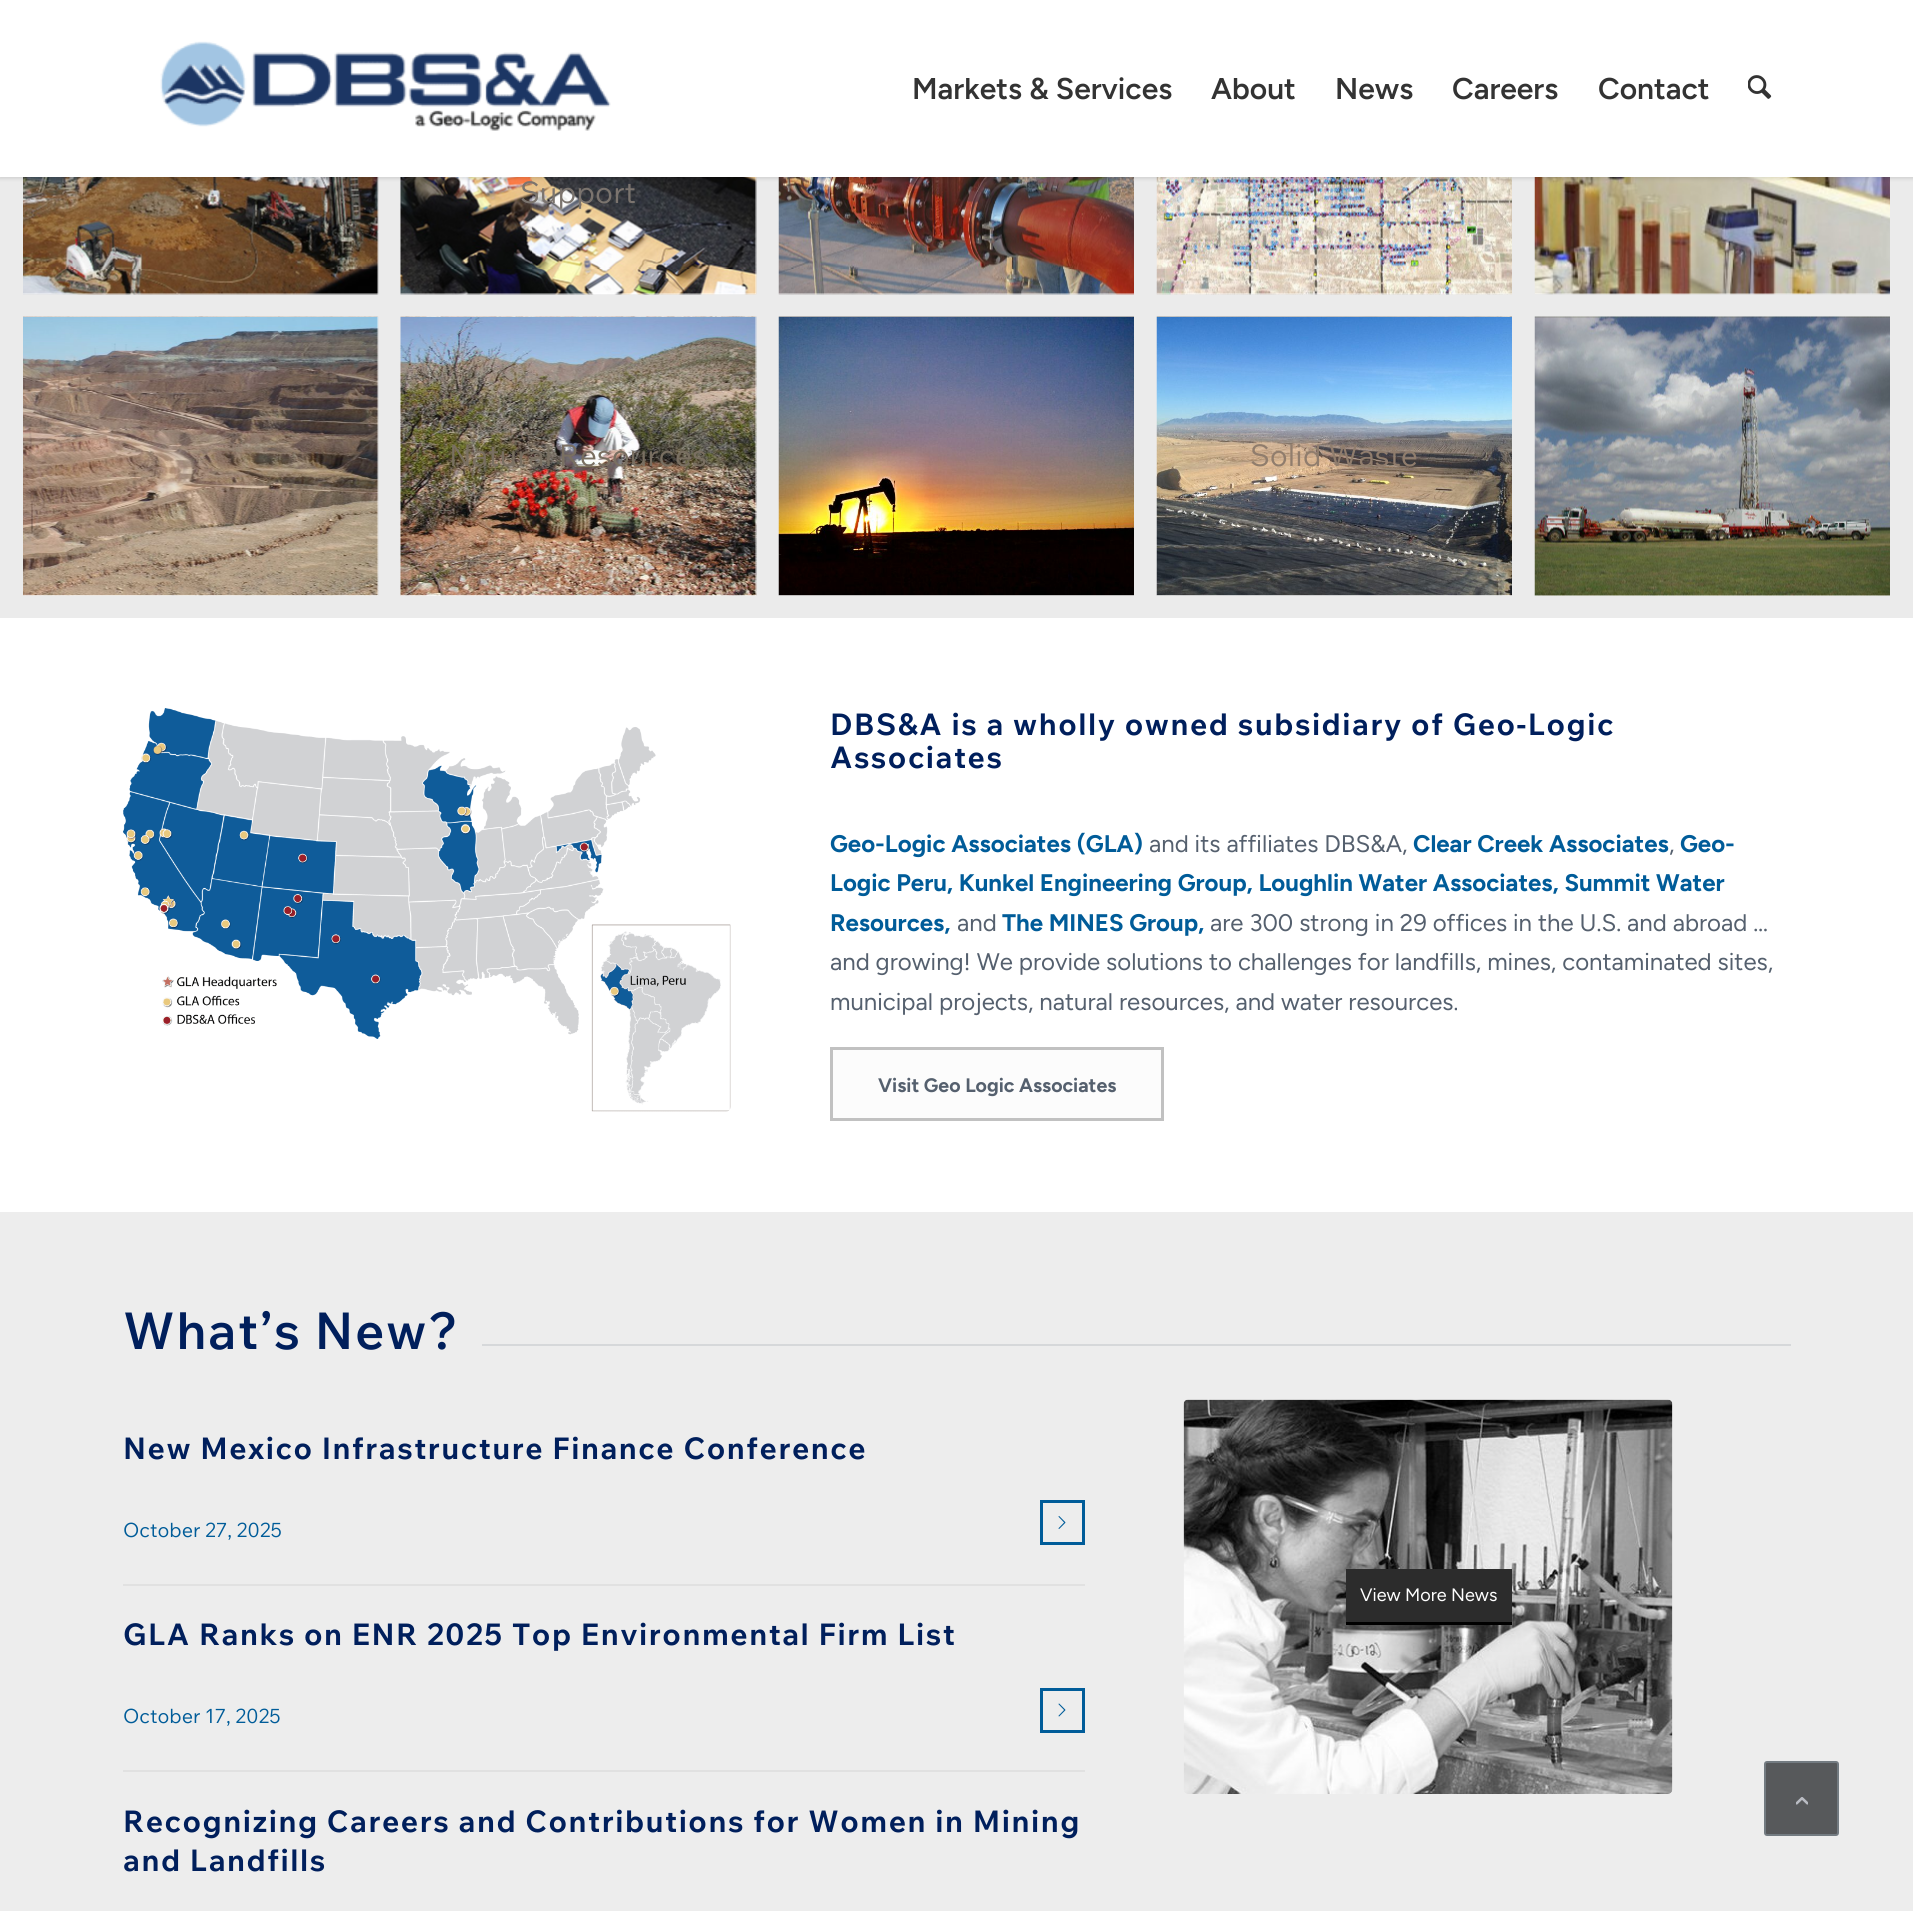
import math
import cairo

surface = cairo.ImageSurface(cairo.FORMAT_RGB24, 1913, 1911)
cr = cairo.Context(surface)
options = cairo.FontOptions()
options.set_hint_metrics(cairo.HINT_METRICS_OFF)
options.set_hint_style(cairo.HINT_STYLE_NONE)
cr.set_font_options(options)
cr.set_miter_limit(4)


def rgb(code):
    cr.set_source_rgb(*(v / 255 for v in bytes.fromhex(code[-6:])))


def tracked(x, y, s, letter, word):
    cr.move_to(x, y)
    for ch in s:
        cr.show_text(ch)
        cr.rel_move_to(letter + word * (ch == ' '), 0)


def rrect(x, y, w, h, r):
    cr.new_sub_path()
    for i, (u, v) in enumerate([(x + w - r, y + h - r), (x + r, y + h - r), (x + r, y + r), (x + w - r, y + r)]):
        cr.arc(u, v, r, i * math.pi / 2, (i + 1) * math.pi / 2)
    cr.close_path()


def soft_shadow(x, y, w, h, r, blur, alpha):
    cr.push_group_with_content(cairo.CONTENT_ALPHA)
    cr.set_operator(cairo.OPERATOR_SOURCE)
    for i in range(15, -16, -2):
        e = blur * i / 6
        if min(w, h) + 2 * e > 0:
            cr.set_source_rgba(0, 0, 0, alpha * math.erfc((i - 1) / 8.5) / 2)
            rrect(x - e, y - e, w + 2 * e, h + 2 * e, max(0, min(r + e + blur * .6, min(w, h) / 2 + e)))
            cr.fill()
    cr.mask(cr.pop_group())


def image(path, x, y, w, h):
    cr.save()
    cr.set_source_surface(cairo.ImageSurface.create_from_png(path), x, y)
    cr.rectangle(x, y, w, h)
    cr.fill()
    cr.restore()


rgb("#ffffff")
cr.paint()
rgb("#ebebeb")
cr.rectangle(0, 177, 1913, 441)
cr.fill()
rgb("#ffffff")
cr.rectangle(23, 177, 355, 117)
cr.fill()
image("img/3.png", 23, 177, 356, 118)
cr.rectangle(401, 177, 355, 117)
cr.fill()
image("img/4.png", 400, 177, 357, 118)
cr.rectangle(779, 293, 355, 1)
cr.fill()
image("img/5.png", 778, 177, 356, 118)
cr.rectangle(1157, 293, 355, 1)
cr.fill()
image("img/6.png", 1156, 177, 356, 118)
cr.rectangle(1535, 293, 355, 1)
cr.fill()
image("img/7.png", 1534, 177, 356, 118)
rgb("#000000")
soft_shadow(-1, -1, 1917, 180, 0, 1.5, 0.1)
rgb("#ffffff")
cr.rectangle(0, 0, 1913, 177)
cr.fill()
image("img/1.png", 160, 41, 451, 90)
image("img/2.png", 1748, 75, 24, 24)
cr.rectangle(23, 317, 355, 279)
cr.fill()
image("img/8.png", 23, 316, 356, 280)
cr.rectangle(401, 317, 355, 279)
cr.fill()
image("img/9.png", 400, 316, 357, 280)
cr.rectangle(779, 595, 355, 1)
cr.fill()
image("img/10.png", 778, 316, 356, 280)
cr.rectangle(1157, 595, 355, 1)
cr.fill()
image("img/11.png", 1156, 316, 356, 280)
cr.rectangle(1535, 595, 355, 1)
cr.fill()
image("img/12.png", 1534, 316, 356, 280)
image("img/13.png", 123, 708, 608, 404)
rgb("#fcfcfc")
cr.rectangle(831.5, 1048.5, 331, 71)
cr.fill_preserve()
rgb("#c1c1c1")
cr.set_line_width(3)
cr.stroke()
for x, y, w, h, color in [
    (0, 1212, 1913, 699, "#ededed"),
    (482, 1344, 1309, 2, "#d6d8da"),
    (123, 1584, 962, 2, "#e1e1e1"),
]:
    rgb(color)
    cr.rectangle(x, y, w, h)
    cr.fill()
cr.rectangle(1041.5, 1501.5, 42, 42)
rgb("#005c99")
cr.stroke()
image("img/14.png", 1058, 1516, 8, 13)
rgb("#e1e1e1")
cr.rectangle(123, 1770, 962, 2)
cr.fill()
cr.rectangle(1041.5, 1689.5, 42, 42)
rgb("#005c99")
cr.stroke()
image("img/15.png", 1058, 1703, 8, 14)
image("img/16.png", 1183, 1399, 490, 395)
rgb("#2c2c2c")
cr.rectangle(1346, 1569, 166, 53)
cr.fill()
rgb("#000000")
cr.rectangle(1346, 1622, 166, 3)
cr.fill()
rgb("#57595b")
rrect(1765, 1762, 73, 73, 2)
cr.fill_preserve()
rgb("#737b81")
cr.set_line_width(2)
cr.stroke()
image("img/17.png", 1796, 1797, 12, 8)
cr.select_font_face("Figtree SemiBold")
cr.set_font_size(30)
rgb("#333333")
for x, y, s in [
    (912, 99, "Markets & Services"),
    (1211, 99, "About"),
    (1335, 99, "News"),
    (1452, 99, "Careers"),
    (1598, 99, "Contact"),
]:
    cr.move_to(x, y)
    cr.show_text(s)
cr.select_font_face("Wix Madefor Text")
rgb("#7b746e")
cr.move_to(520, 203)
cr.show_text("Support")
rgb("#796f61")
cr.move_to(449, 466)
cr.show_text("Natural Resources")
rgb("#907d6d")
cr.move_to(1250, 466)
cr.show_text("Solid Waste")
cr.select_font_face("Wix Madefor Text", cairo.FONT_SLANT_NORMAL, cairo.FONT_WEIGHT_BOLD)
rgb("#001f5c")
tracked(830, 735, "DBS&A is a wholly owned subsidiary of Geo-Logic", 1.5, 0)
tracked(830, 768, "Associates", 1.5, 0)
cr.select_font_face("Figtree", cairo.FONT_SLANT_NORMAL, cairo.FONT_WEIGHT_BOLD)
cr.set_font_size(24)
rgb("#005c99")
cr.move_to(830, 852)
cr.show_text("Geo-Logic Associates (GLA)")
cr.select_font_face("Figtree")
rgb("#55606e")
cr.move_to(1149, 852)
cr.show_text("and its affiliates DBS&A,")
cr.select_font_face("Figtree", cairo.FONT_SLANT_NORMAL, cairo.FONT_WEIGHT_BOLD)
rgb("#005c99")
cr.move_to(1413, 852)
cr.show_text("Clear Creek Associates")
cr.select_font_face("Figtree")
rgb("#55606e")
cr.move_to(1669, 852)
cr.show_text(",")
cr.select_font_face("Figtree", cairo.FONT_SLANT_NORMAL, cairo.FONT_WEIGHT_BOLD)
rgb("#005c99")
for x, y, s in [
    (1680, 852, "Geo-"),
    (830, 891, "Logic Peru, Kunkel Engineering Group, Loughlin Water Associates, Summit Water"),
    (830, 931, "Resources,"),
]:
    cr.move_to(x, y)
    cr.show_text(s)
cr.select_font_face("Figtree")
rgb("#55606e")
cr.move_to(957, 931)
cr.show_text("and")
cr.select_font_face("Figtree", cairo.FONT_SLANT_NORMAL, cairo.FONT_WEIGHT_BOLD)
rgb("#005c99")
cr.move_to(1002, 931)
cr.show_text("The MINES Group,")
cr.select_font_face("Figtree")
rgb("#55606e")
for x, y, s in [
    (1210, 931, "are 300 strong in 29 offices in the U.S. and abroad …"),
    (830, 970, "and growing! We provide solutions to challenges for landfills, mines, contaminated sites,"),
    (830, 1010, "municipal projects, natural resources, and water resources."),
]:
    cr.move_to(x, y)
    cr.show_text(s)
cr.select_font_face("Figtree", cairo.FONT_SLANT_NORMAL, cairo.FONT_WEIGHT_BOLD)
cr.set_font_size(19.5)
cr.move_to(878, 1092)
cr.show_text("Visit Geo Logic Associates")
cr.select_font_face("Wix Madefor Text SemiBold")
cr.set_font_size(51)
rgb("#001f5c")
tracked(123, 1349, "What’s New?", 1.5, 0)
cr.select_font_face("Wix Madefor Text", cairo.FONT_SLANT_NORMAL, cairo.FONT_WEIGHT_BOLD)
cr.set_font_size(30)
tracked(123, 1459, "New Mexico Infrastructure Finance Conference", 1.5, 0)
cr.select_font_face("Wix Madefor Text")
cr.set_font_size(19.75)
rgb("#005c99")
cr.move_to(123, 1537)
cr.show_text("October 27, 2025")
cr.select_font_face("Wix Madefor Text", cairo.FONT_SLANT_NORMAL, cairo.FONT_WEIGHT_BOLD)
cr.set_font_size(30)
rgb("#001f5c")
tracked(123, 1645, "GLA Ranks on ENR 2025 Top Environmental Firm List", 1.5, 0)
cr.select_font_face("Wix Madefor Text")
cr.set_font_size(19.75)
rgb("#005c99")
cr.move_to(123, 1723)
cr.show_text("October 17, 2025")
cr.select_font_face("Wix Madefor Text", cairo.FONT_SLANT_NORMAL, cairo.FONT_WEIGHT_BOLD)
cr.set_font_size(30)
rgb("#001f5c")
tracked(123, 1832, "Recognizing Careers and Contributions for Women in Mining", 1.5, 0)
tracked(123, 1871, "and Landfills", 1.5, 0)
cr.select_font_face("Figtree")
cr.set_font_size(18)
rgb("#ffffff")
cr.move_to(1360, 1601)
cr.show_text("View More News")
surface.write_to_png("page.png")
